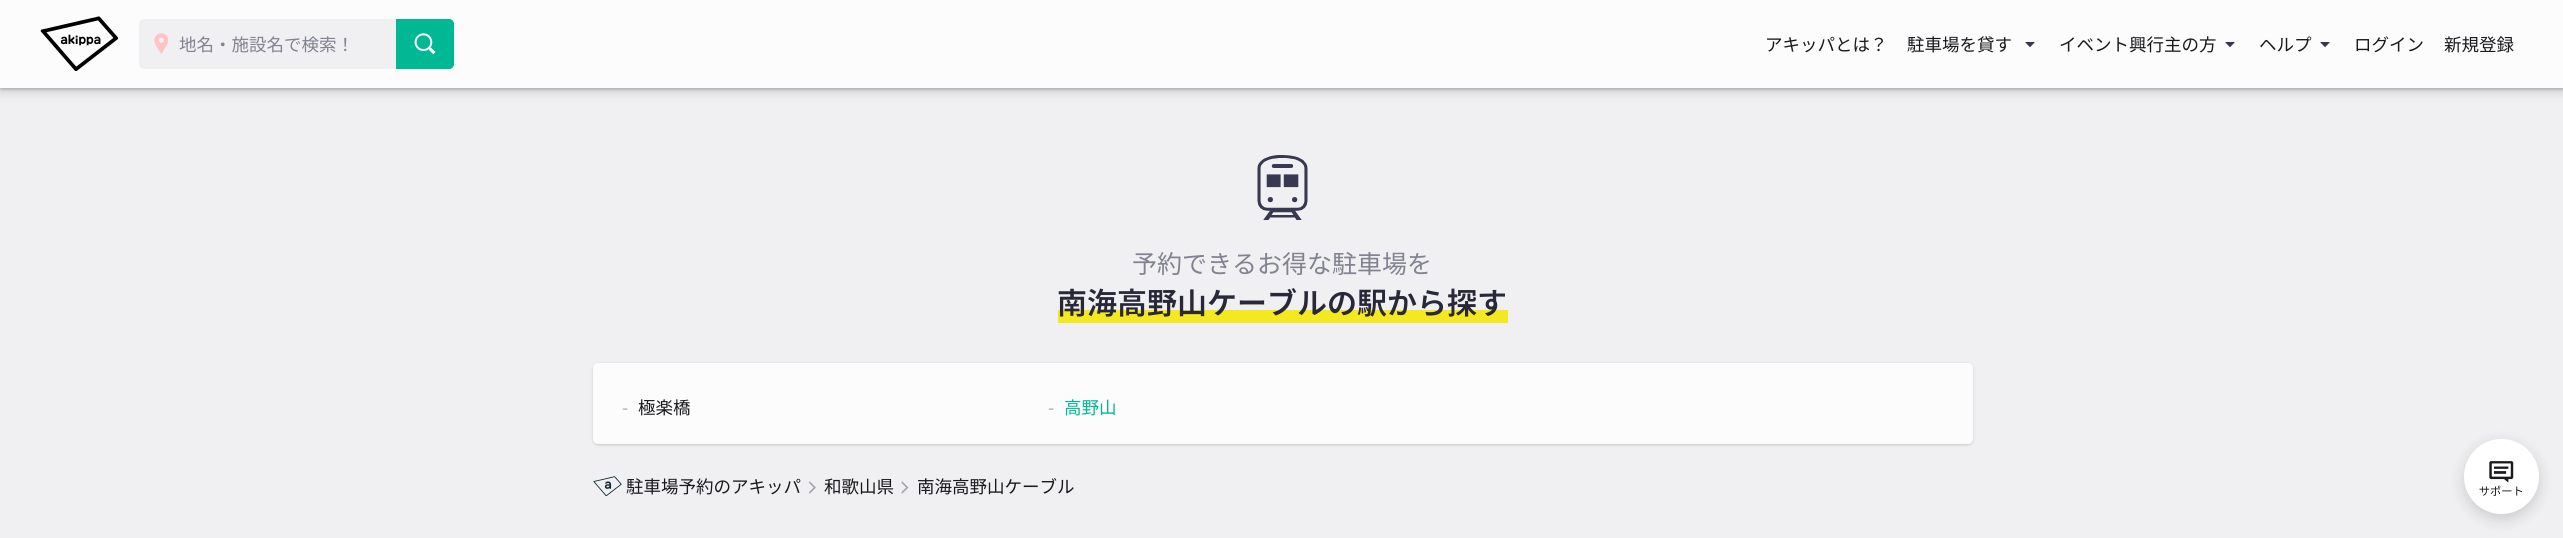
import math
import cairo

surface = cairo.ImageSurface(cairo.FORMAT_RGB24, 2563, 538)
cr = cairo.Context(surface)
options = cairo.FontOptions()
options.set_hint_metrics(cairo.HINT_METRICS_OFF)
options.set_hint_style(cairo.HINT_STYLE_NONE)
cr.set_font_options(options)
cr.set_miter_limit(4)


def rgb(code):
    cr.set_source_rgb(*(v / 255 for v in bytes.fromhex(code[-6:])))


def rrect(x, y, w, h, r):
    cr.new_sub_path()
    for i, (u, v) in enumerate([(x + w - r, y + h - r), (x + r, y + h - r), (x + r, y + r), (x + w - r, y + r)]):
        cr.arc(u, v, r, i * math.pi / 2, (i + 1) * math.pi / 2)
    cr.close_path()


def soft_shadow(x, y, w, h, r, blur, alpha):
    cr.push_group_with_content(cairo.CONTENT_ALPHA)
    cr.set_operator(cairo.OPERATOR_SOURCE)
    for i in range(15, -16, -2):
        e = blur * i / 6
        if min(w, h) + 2 * e > 0:
            cr.set_source_rgba(0, 0, 0, alpha * math.erfc((i - 1) / 8.5) / 2)
            rrect(x - e, y - e, w + 2 * e, h + 2 * e, max(0, min(r + e + blur * .6, min(w, h) / 2 + e)))
            cr.fill()
    cr.mask(cr.pop_group())


def image(path, x, y, w, h):
    cr.save()
    cr.set_source_surface(cairo.ImageSurface.create_from_png(path), x, y)
    cr.rectangle(x, y, w, h)
    cr.fill()
    cr.restore()


rgb("#f0f0f2")
cr.paint()
rgb("#000000")
soft_shadow(0, 3, 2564, 87, 0, 1, 0.16)
soft_shadow(0, 5, 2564, 88, 0, 5, 0.12)
rgb("#fcfcfc")
cr.rectangle(0, 0, 2563, 88)
cr.fill()
image("img/1.png", 40, 16, 79, 55)
rgb("#f0f0f2")
cr.new_path()
cr.move_to(144, 19)
cr.line_to(396, 19)
cr.line_to(396, 69)
cr.line_to(144, 69)
cr.curve_to(141, 69, 139, 67, 139, 64)
cr.line_to(139, 24)
cr.curve_to(139, 21, 141, 19, 144, 19)
cr.close_path()
cr.fill()
image("img/2.png", 154, 33, 15, 21)
rgb("#00b893")
cr.new_path()
cr.move_to(396.5, 19.5)
cr.line_to(449, 19.5)
cr.curve_to(451.5, 19.5, 453.5, 21.5, 453.5, 24)
cr.line_to(453.5, 64)
cr.curve_to(453.5, 66.5, 451.5, 68.5, 449, 68.5)
cr.line_to(396.5, 68.5)
cr.close_path()
cr.fill_preserve()
cr.set_line_width(1)
cr.stroke()
image("img/3.png", 414, 33, 22, 22)
image("img/4.png", 2025, 42, 10, 6)
image("img/4.png", 2225, 42, 10, 6)
image("img/4.png", 2320, 42, 10, 6)
image("img/5.png", 1257, 155, 51, 65)
rgb("#f4e921")
cr.rectangle(1058, 310, 450, 13)
cr.fill()
rgb("#000000")
soft_shadow(593, 364, 1380, 81, 5, 1, 0.12)
soft_shadow(593, 364, 1380, 81, 5, 2, 0.06)
rgb("#fcfcfc")
rrect(593, 363, 1380, 81, 5)
cr.fill()
image("img/6.png", 593, 476, 29, 20)
image("img/7.png", 809, 481, 7, 13)
image("img/8.png", 901, 481, 8, 13)
rgb("#000000")
soft_shadow(2464, 444, 75, 75, 37.5, 7.5, 0.15)
rgb("#ffffff")
cr.arc(2501.5, 476.5, 37.5, 0, 2 * math.pi)
cr.fill()
image("img/9.png", 2479, 461, 43, 35)
cr.select_font_face("Noto Sans JP")
cr.set_font_size(17.5)
rgb("#828291")
cr.move_to(179, 51)
cr.show_text("地名・施設名で検索！")
rgb("#1a1a1e")
for x, y, s in [
    (1765, 51, "アキッパとは？"),
    (1907, 51, "駐車場を貸す"),
    (2059, 51, "イベント興行主の方"),
    (2259, 51, "ヘルプ"),
    (2354, 51, "ログイン"),
    (2444, 51, "新規登録"),
]:
    cr.move_to(x, y)
    cr.show_text(s)
cr.set_font_size(25)
rgb("#828291")
cr.move_to(1132, 273)
cr.show_text("予約できるお得な駐車場を")
cr.select_font_face("Noto Sans JP SemiBold")
cr.set_font_size(30)
rgb("#282838")
cr.move_to(1057, 314)
cr.show_text("南海高野山ケーブルの駅から探す")
cr.select_font_face("Noto Sans JP")
cr.set_font_size(17.5)
rgb("#a6a6b1")
cr.move_to(622, 414)
cr.show_text("-")
rgb("#1a1a1e")
cr.move_to(638, 414)
cr.show_text("極楽橋")
rgb("#a6a6b1")
cr.move_to(1048, 414)
cr.show_text("-")
rgb("#00b893")
cr.move_to(1064, 414)
cr.show_text("高野山")
rgb("#1a1a1e")
for x, y, s in [
    (626, 493, "駐車場予約のアキッパ"),
    (824, 493, "和歌山県"),
    (917, 493, "南海高野山ケーブル"),
]:
    cr.move_to(x, y)
    cr.show_text(s)
surface.write_to_png("page.png")
